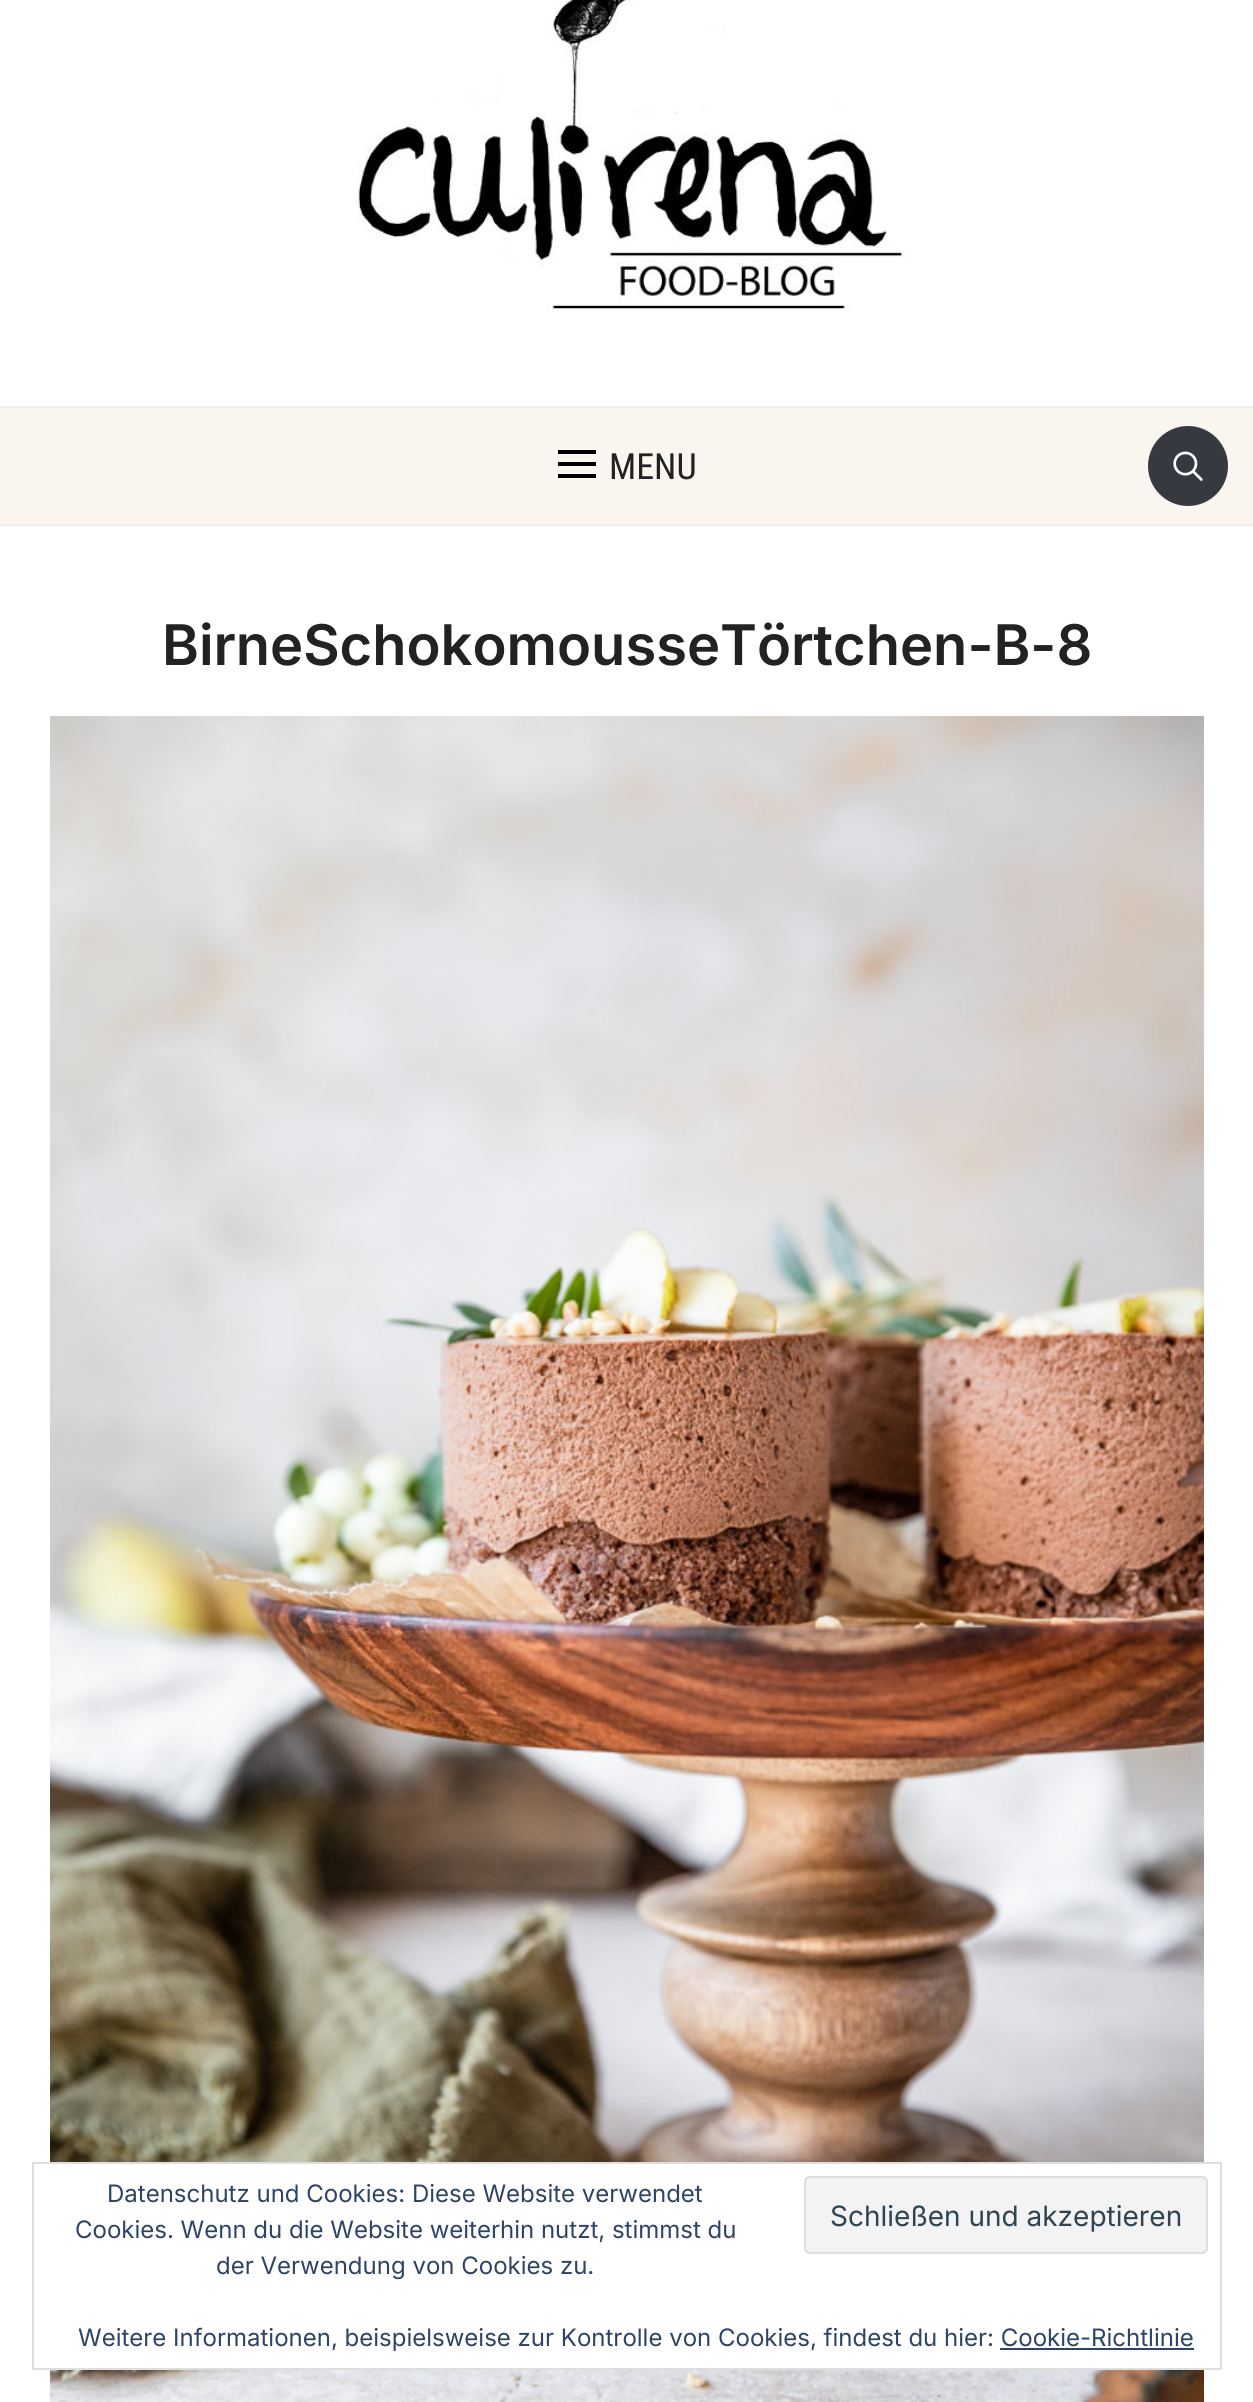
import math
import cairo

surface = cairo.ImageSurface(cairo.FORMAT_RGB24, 1253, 2402)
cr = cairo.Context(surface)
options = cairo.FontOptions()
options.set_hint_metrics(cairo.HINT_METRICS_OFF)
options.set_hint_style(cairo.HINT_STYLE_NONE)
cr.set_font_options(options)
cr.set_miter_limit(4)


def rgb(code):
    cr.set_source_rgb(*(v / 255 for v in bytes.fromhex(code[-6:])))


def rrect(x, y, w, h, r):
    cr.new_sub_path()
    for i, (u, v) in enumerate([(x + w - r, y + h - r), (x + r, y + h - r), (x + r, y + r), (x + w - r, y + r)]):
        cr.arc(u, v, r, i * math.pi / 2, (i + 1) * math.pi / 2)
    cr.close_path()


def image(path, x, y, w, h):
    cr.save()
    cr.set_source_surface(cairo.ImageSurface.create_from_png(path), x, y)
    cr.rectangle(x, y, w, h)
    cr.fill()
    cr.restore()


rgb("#ffffff")
cr.paint()
image("img/1.png", 357, 0, 549, 312)
for x, y, w, h, color in [
    (0, 408, 1253, 116, "#fbf5ef"),
    (0, 406, 1253, 2, "#f0f0f0"),
    (0, 524, 1253, 2, "#f0f0f0"),
    (558, 450, 38, 4, "#000000"),
    (558, 462, 38, 4, "#000000"),
    (558, 474, 38, 4, "#000000"),
]:
    rgb(color)
    cr.rectangle(x, y, w, h)
    cr.fill()
rgb("#363940")
cr.arc(1188, 466, 40, 0, 2 * math.pi)
cr.fill()
image("img/2.png", 1173, 451, 30, 30)
image("img/3.png", 50, 716, 1154, 1686)
rgb("#ffffff")
cr.rectangle(50, 2164, 1154, 204)
cr.fill()
cr.rectangle(33, 2163, 1188, 206)
rgb("#dedede")
cr.stroke()
rgb("#f3f3f3")
rrect(805, 2177, 402, 76, 5)
cr.fill_preserve()
rgb("#dedede")
cr.stroke()
rgb("#2e4467")
cr.rectangle(1000, 2348, 194, 2)
cr.fill()
cr.select_font_face("Roboto Condensed")
cr.set_font_size(36)
rgb("#222222")
cr.move_to(609, 479)
cr.show_text("MENU")
cr.select_font_face("Inter SemiBold")
cr.set_font_size(56)
cr.move_to(162, 665)
cr.show_text("BirneSchokomousseTörtchen-B-8")
cr.select_font_face("Inter")
cr.set_font_size(24)
rgb("#2e4467")
cr.move_to(107, 2202)
cr.show_text("Datenschutz und Cookies: Diese Website verwendet")
cr.move_to(75, 2238)
cr.show_text("Cookies. Wenn du die Website weiterhin nutzt, stimmst du")
cr.set_font_size(28)
rgb("#2e4453")
cr.move_to(830, 2226)
cr.show_text("Schließen und akzeptieren")
cr.set_font_size(24)
rgb("#2e4467")
cr.move_to(216, 2274)
cr.show_text("der Verwendung von Cookies zu.")
cr.move_to(78, 2346)
cr.show_text("Weitere Informationen, beispielsweise zur Kontrolle von Cookies, findest du hier: Cookie-Richtlinie")
surface.write_to_png("page.png")
